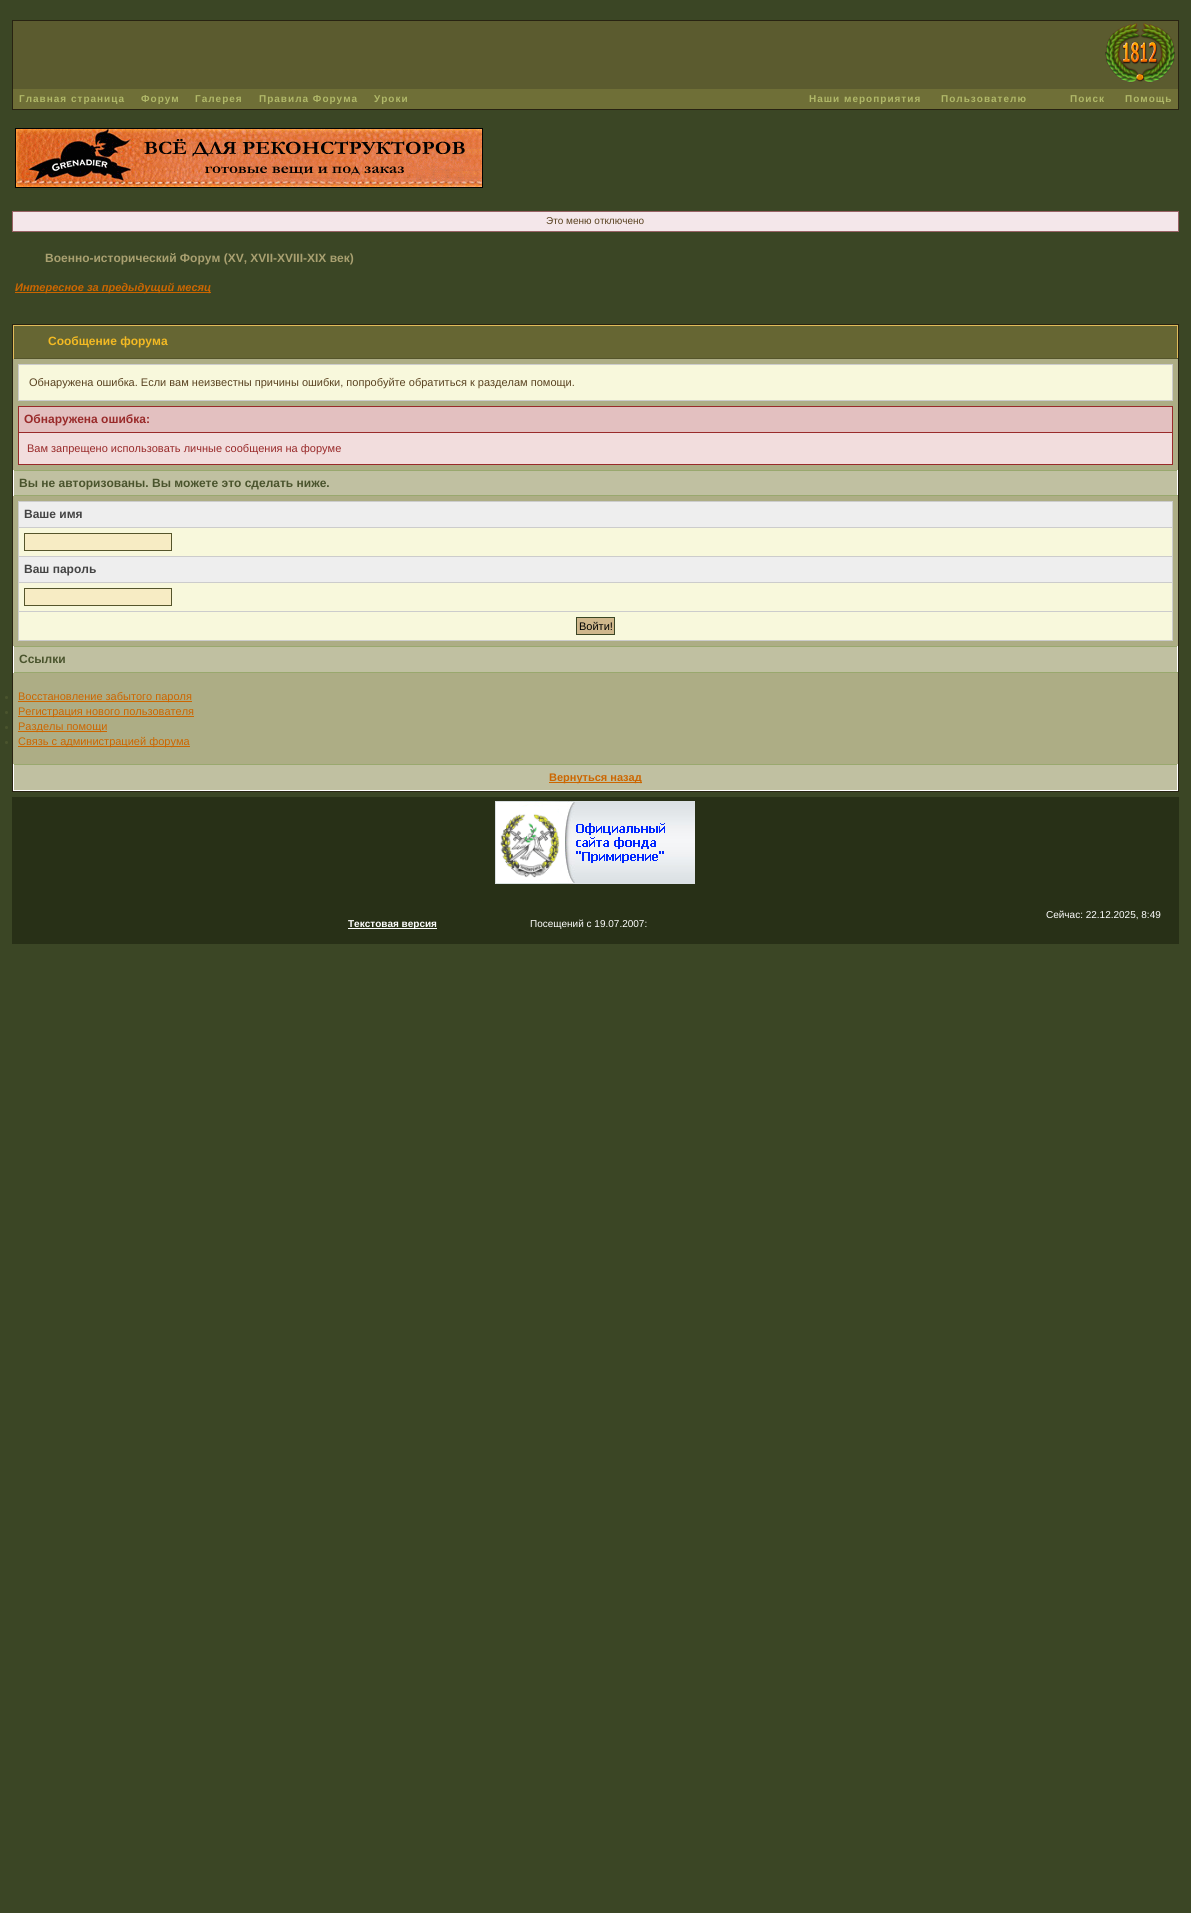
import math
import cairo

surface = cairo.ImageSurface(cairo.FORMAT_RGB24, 1191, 1913)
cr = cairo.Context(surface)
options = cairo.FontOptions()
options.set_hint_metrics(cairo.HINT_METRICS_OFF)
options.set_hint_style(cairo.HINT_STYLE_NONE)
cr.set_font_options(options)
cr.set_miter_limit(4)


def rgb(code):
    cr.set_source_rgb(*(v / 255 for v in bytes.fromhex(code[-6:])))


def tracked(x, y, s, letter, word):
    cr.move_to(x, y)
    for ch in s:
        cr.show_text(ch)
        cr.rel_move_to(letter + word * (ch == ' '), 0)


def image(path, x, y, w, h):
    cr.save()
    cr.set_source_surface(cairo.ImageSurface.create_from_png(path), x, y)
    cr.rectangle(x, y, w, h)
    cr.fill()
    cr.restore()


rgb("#3b4625")
cr.paint()
cr.rectangle(12.5, 20.5, 1166, 89)
rgb("#282312")
cr.set_line_width(1)
cr.stroke()
rgb("#5b5b2f")
cr.rectangle(13, 21, 1165, 68)
cr.fill()
image("img/1.png", 1105, 23, 70, 60)
rgb("#6f6f37")
cr.rectangle(13, 89, 1165, 20)
cr.fill()
image("img/2.png", 15, 128, 468, 60)
rgb("#f4e7ea")
cr.rectangle(12.5, 211.5, 1166, 20)
cr.fill_preserve()
rgb("#986265")
cr.stroke()
rgb("#cc6600")
cr.rectangle(15, 292, 196, 1)
cr.fill()
rgb("#adad85")
cr.rectangle(13, 359, 1165, 405)
cr.fill()
cr.rectangle(12.5, 324.5, 1166, 467)
rgb("#282312")
cr.stroke()
for x, y, w, h, color in [
    (14, 326, 1163, 32, "#666633"),
    (13, 325, 1165, 1, "#e0bb5a"),
    (1177, 325, 1, 34, "#e0bb5a"),
    (13, 358, 1165, 1, "#55552b"),
    (13, 325, 1, 34, "#e0bb5a"),
]:
    rgb(color)
    cr.rectangle(x, y, w, h)
    cr.fill()
rgb("#f8f8dc")
cr.rectangle(18.5, 364.5, 1154, 36)
cr.fill_preserve()
rgb("#cccccc")
cr.stroke()
for x, y, w, h, color in [
    (19, 433, 1153, 31, "#f2dddd"),
    (1172, 406, 1, 59, "#992a2a"),
    (18, 464, 1155, 1, "#992a2a"),
    (18, 406, 1, 59, "#992a2a"),
    (19, 407, 1153, 25, "#e3c0c0"),
    (19, 406, 1153, 1, "#992a2a"),
    (19, 432, 1153, 1, "#992a2a"),
    (14, 471, 1163, 24, "#c0c0a1"),
    (13, 470, 1165, 1, "#99a86e"),
    (1177, 470, 1, 26, "#ffffff"),
    (13, 495, 1165, 1, "#99a86e"),
    (13, 470, 1, 26, "#ffffff"),
    (19, 528, 1153, 112, "#f8f8dc"),
    (1172, 501, 1, 140, "#cccccc"),
    (18, 640, 1155, 1, "#cccccc"),
    (18, 501, 1, 140, "#cccccc"),
    (19, 502, 1153, 25, "#eeeeee"),
    (19, 501, 1153, 1, "#cccccc"),
    (19, 527, 1153, 1, "#cccccc"),
]:
    rgb(color)
    cr.rectangle(x, y, w, h)
    cr.fill()
rgb("#f7ecc4")
cr.rectangle(24.5, 533.5, 147, 17)
cr.fill_preserve()
rgb("#55552b")
cr.stroke()
for x, y, w, h, color in [
    (19, 557, 1153, 25, "#eeeeee"),
    (19, 556, 1153, 1, "#cccccc"),
    (19, 582, 1153, 1, "#cccccc"),
]:
    rgb(color)
    cr.rectangle(x, y, w, h)
    cr.fill()
rgb("#f7ecc4")
cr.rectangle(24.5, 588.5, 147, 17)
cr.fill_preserve()
rgb("#55552b")
cr.stroke()
rgb("#cccccc")
cr.rectangle(19, 611, 1153, 1)
cr.fill()
rgb("#cfb78c")
cr.rectangle(576.5, 617.5, 38, 17)
cr.fill_preserve()
rgb("#3b4625")
cr.stroke()
for x, y, w, h, color in [
    (14, 647, 1163, 25, "#c0c0a1"),
    (13, 646, 1165, 1, "#99a86e"),
    (1177, 646, 1, 27, "#ffffff"),
    (13, 672, 1165, 1, "#99a86e"),
    (13, 646, 1, 27, "#ffffff"),
]:
    rgb(color)
    cr.rectangle(x, y, w, h)
    cr.fill()
rgb("#4a542d")
cr.arc(6.5, 697.5, 1.5, 0, 2 * math.pi)
cr.fill()
rgb("#cc6600")
cr.rectangle(18, 701, 174, 1)
cr.fill()
rgb("#4a542d")
cr.arc(6.5, 712.5, 1.5, 0, 2 * math.pi)
cr.fill()
rgb("#cc6600")
cr.rectangle(18, 716, 176, 1)
cr.fill()
rgb("#4a542d")
cr.arc(6.5, 727.5, 1.5, 0, 2 * math.pi)
cr.fill()
rgb("#cc6600")
cr.rectangle(18, 731, 89, 1)
cr.fill()
rgb("#4a542d")
cr.arc(6.5, 742.5, 1.5, 0, 2 * math.pi)
cr.fill()
for x, y, w, h, color in [
    (18, 746, 172, 1, "#cc6600"),
    (14, 765, 1163, 25, "#c0c0a1"),
    (13, 764, 1165, 1, "#99a86e"),
    (1177, 764, 1, 27, "#ffffff"),
    (13, 790, 1165, 1, "#ffffff"),
    (13, 764, 1, 27, "#ffffff"),
    (549, 782, 93, 1, "#cc6600"),
    (12, 797, 1167, 147, "#283017"),
]:
    rgb(color)
    cr.rectangle(x, y, w, h)
    cr.fill()
image("img/3.png", 495, 801, 200, 83)
rgb("#ffffff")
cr.rectangle(348, 928, 89, 1)
cr.fill()
cr.select_font_face("Liberation Sans", cairo.FONT_SLANT_NORMAL, cairo.FONT_WEIGHT_BOLD)
cr.set_font_size(10)
rgb("#b0b868")
for x, y, s in [
    (19, 102, "Главная страница"),
    (141, 102, "Форум"),
    (195, 102, "Галерея"),
    (259, 102, "Правила Форума"),
    (374, 102, "Уроки"),
    (809, 102, "Наши мероприятия"),
    (941, 102, "Пользователю"),
    (1070, 102, "Поиск"),
    (1125, 102, "Помощь"),
]:
    tracked(x, y, s, 1, 0)
cr.select_font_face("Liberation Sans")
rgb("#594220")
cr.move_to(546, 224)
cr.show_text("Это меню отключено")
cr.select_font_face("Liberation Sans", cairo.FONT_SLANT_NORMAL, cairo.FONT_WEIGHT_BOLD)
cr.set_font_size(12)
rgb("#a9a070")
cr.move_to(45, 262)
cr.show_text("Военно-исторический Форум (XV, XVII-XVIII-XIX век)")
cr.select_font_face("Liberation Sans", cairo.FONT_SLANT_ITALIC, cairo.FONT_WEIGHT_BOLD)
cr.set_font_size(11)
rgb("#cc6600")
cr.move_to(15, 291)
cr.show_text("Интересное за предыдущий месяц")
cr.select_font_face("Liberation Sans", cairo.FONT_SLANT_NORMAL, cairo.FONT_WEIGHT_BOLD)
cr.set_font_size(12)
rgb("#f3ba23")
cr.move_to(48, 345)
cr.show_text("Сообщение форума")
cr.select_font_face("Liberation Sans")
cr.set_font_size(11)
rgb("#594220")
cr.move_to(29, 386)
cr.show_text("Обнаружена ошибка. Если вам неизвестны причины ошибки, попробуйте обратиться к разделам помощи.")
cr.select_font_face("Liberation Sans", cairo.FONT_SLANT_NORMAL, cairo.FONT_WEIGHT_BOLD)
cr.set_font_size(12)
rgb("#992a2a")
cr.move_to(24, 423)
cr.show_text("Обнаружена ошибка:")
cr.select_font_face("Liberation Sans")
cr.set_font_size(11)
cr.move_to(27, 452)
cr.show_text("Вам запрещено использовать личные сообщения на форуме")
cr.select_font_face("Liberation Sans", cairo.FONT_SLANT_NORMAL, cairo.FONT_WEIGHT_BOLD)
cr.set_font_size(12)
rgb("#4a542d")
cr.move_to(19, 487)
cr.show_text("Вы не авторизованы. Вы можете это сделать ниже.")
rgb("#444444")
cr.move_to(24, 518)
cr.show_text("Ваше имя")
cr.move_to(24, 573)
cr.show_text("Ваш пароль")
cr.select_font_face("Liberation Sans")
cr.set_font_size(11)
rgb("#000000")
cr.move_to(579, 630)
cr.show_text("Войти!")
cr.select_font_face("Liberation Sans", cairo.FONT_SLANT_NORMAL, cairo.FONT_WEIGHT_BOLD)
cr.set_font_size(12)
rgb("#4a542d")
cr.move_to(19, 663)
cr.show_text("Ссылки")
cr.select_font_face("Liberation Sans")
cr.set_font_size(11)
rgb("#cc6600")
for x, y, s in [
    (18, 700, "Восстановление забытого пароля"),
    (18, 715, "Регистрация нового пользователя"),
    (18, 730, "Разделы помощи"),
    (18, 745, "Связь с администрацией форума"),
]:
    cr.move_to(x, y)
    cr.show_text(s)
cr.select_font_face("Liberation Sans", cairo.FONT_SLANT_NORMAL, cairo.FONT_WEIGHT_BOLD)
cr.move_to(549, 781)
cr.show_text("Вернуться назад")
cr.select_font_face("Liberation Sans")
cr.set_font_size(10)
rgb("#ffffff")
cr.move_to(1046, 918)
cr.show_text("Сейчас: 22.12.2025, 8:49")
cr.select_font_face("Liberation Sans", cairo.FONT_SLANT_NORMAL, cairo.FONT_WEIGHT_BOLD)
cr.move_to(348, 927)
cr.show_text("Текстовая версия")
cr.select_font_face("Liberation Sans")
cr.move_to(530, 927)
cr.show_text("Посещений с 19.07.2007:")
surface.write_to_png("page.png")
